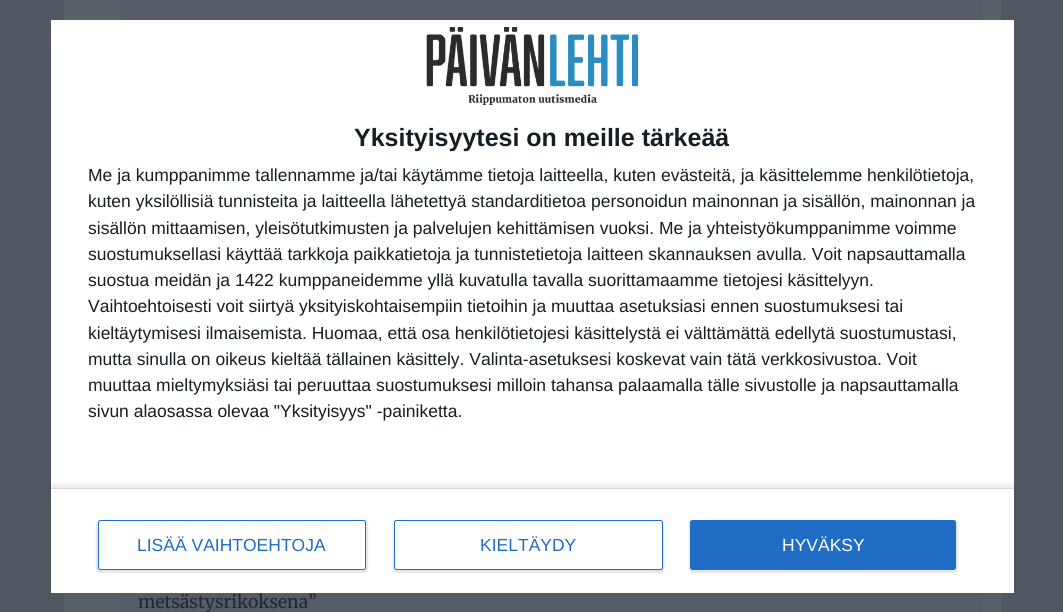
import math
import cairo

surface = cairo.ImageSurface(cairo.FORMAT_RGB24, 1063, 612)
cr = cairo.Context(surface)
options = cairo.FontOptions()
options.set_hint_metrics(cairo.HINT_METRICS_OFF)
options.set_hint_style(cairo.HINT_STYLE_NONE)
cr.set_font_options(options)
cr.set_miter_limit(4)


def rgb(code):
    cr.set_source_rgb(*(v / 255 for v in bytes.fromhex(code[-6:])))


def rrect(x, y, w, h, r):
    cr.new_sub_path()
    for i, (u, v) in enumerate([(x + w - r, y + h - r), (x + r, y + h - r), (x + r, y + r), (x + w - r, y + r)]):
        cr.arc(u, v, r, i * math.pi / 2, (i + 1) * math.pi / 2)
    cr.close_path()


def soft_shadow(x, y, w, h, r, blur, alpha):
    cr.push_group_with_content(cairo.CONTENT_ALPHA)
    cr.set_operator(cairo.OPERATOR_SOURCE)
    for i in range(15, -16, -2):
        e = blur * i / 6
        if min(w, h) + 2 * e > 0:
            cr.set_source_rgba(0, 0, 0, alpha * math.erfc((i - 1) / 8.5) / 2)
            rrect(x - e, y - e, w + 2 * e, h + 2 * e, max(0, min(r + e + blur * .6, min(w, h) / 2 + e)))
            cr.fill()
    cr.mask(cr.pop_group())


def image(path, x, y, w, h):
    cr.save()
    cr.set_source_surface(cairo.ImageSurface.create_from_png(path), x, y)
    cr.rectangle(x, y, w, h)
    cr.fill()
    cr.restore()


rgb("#505760")
cr.paint()
rgb("#595f67")
cr.rectangle(64, 0, 937, 612)
cr.fill()
rgb("#ffffff")
cr.rectangle(51, 20, 963, 573)
cr.fill()
image("img/1.png", 426, 27, 213, 78)
rgb("#555c65")
cr.rectangle(120, 593, 863, 19)
cr.fill()
cr.save()
cr.set_fill_rule(cairo.FILL_RULE_EVEN_ODD)
cr.new_path()
cr.move_to(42, 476)
cr.line_to(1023, 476)
cr.line_to(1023, 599)
cr.line_to(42, 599)
cr.close_path()
cr.move_to(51, 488)
cr.line_to(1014, 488)
cr.line_to(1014, 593)
cr.line_to(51, 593)
cr.close_path()
cr.clip()
rgb("#000000")
soft_shadow(51, 485, 963, 105, 0, 2.5, 0.1)
cr.restore()
rgb("#d8d8d8")
cr.rectangle(51, 488, 963, 1)
cr.fill()
rgb("#000000")
soft_shadow(96, 520, 272, 53, 4, 0.5, 0.1)
rgb("#ffffff")
rrect(98.5, 520.5, 267, 49, 2)
cr.fill_preserve()
rgb("#206dc5")
cr.set_line_width(1)
cr.stroke()
rgb("#000000")
soft_shadow(393, 520, 271, 53, 4, 0.5, 0.1)
rgb("#ffffff")
rrect(394.5, 520.5, 268, 49, 2)
cr.fill_preserve()
rgb("#206dc5")
cr.stroke()
rgb("#000000")
soft_shadow(689, 520, 269, 53, 4, 0.5, 0.1)
rgb("#206dc5")
rrect(690, 520, 266, 50, 2.5)
cr.fill()
rgb("#555c65")
cr.rectangle(120, 0, 863, 20)
cr.fill()
cr.select_font_face("Liberation Sans", cairo.FONT_SLANT_NORMAL, cairo.FONT_WEIGHT_BOLD)
cr.set_font_size(25)
rgb("#141e23")
cr.move_to(354, 146)
cr.show_text("Yksityisyytesi on meille tärkeää")
cr.select_font_face("Liberation Sans")
cr.set_font_size(17.5)
for x, y, s in [
    (88, 181, "Me ja kumppanimme tallennamme ja/tai käytämme tietoja laitteella, kuten evästeitä, ja käsittelemme henkilötietoja,"),
    (88, 207, "kuten yksilöllisiä tunnisteita ja laitteella lähetettyä standarditietoa personoidun mainonnan ja sisällön, mainonnan ja"),
    (88, 234, "sisällön mittaamisen, yleisötutkimusten ja palvelujen kehittämisen vuoksi. Me ja yhteistyökumppanimme voimme"),
    (88, 260, "suostumuksellasi käyttää tarkkoja paikkatietoja ja tunnistetietoja laitteen skannauksen avulla. Voit napsauttamalla"),
    (88, 286, "suostua meidän ja 1422 kumppaneidemme yllä kuvatulla tavalla suorittamaamme tietojesi käsittelyyn."),
    (88, 312, "Vaihtoehtoisesti voit siirtyä yksityiskohtaisempiin tietoihin ja muuttaa asetuksiasi ennen suostumuksesi tai"),
    (88, 339, "kieltäytymisesi ilmaisemista. Huomaa, että osa henkilötietojesi käsittelystä ei välttämättä edellytä suostumustasi,"),
    (88, 365, "mutta sinulla on oikeus kieltää tällainen käsittely. Valinta-asetuksesi koskevat vain tätä verkkosivustoa. Voit"),
    (88, 391, "muuttaa mieltymyksiäsi tai peruuttaa suostumuksesi milloin tahansa palaamalla tälle sivustolle ja napsauttamalla"),
    (88, 417, "sivun alaosassa olevaa \"Yksityisyys\" -painiketta."),
]:
    cr.move_to(x, y)
    cr.show_text(s)
rgb("#206dc5")
cr.move_to(137, 551)
cr.show_text("LISÄÄ VAIHTOEHTOJA")
cr.move_to(480, 551)
cr.show_text("KIELTÄYDY")
rgb("#ffffff")
cr.move_to(782, 551)
cr.show_text("HYVÄKSY")
cr.select_font_face("Merriweather")
rgb("#21272f")
cr.move_to(138, 608)
cr.show_text("metsästysrikoksena”")
surface.write_to_png("page.png")
